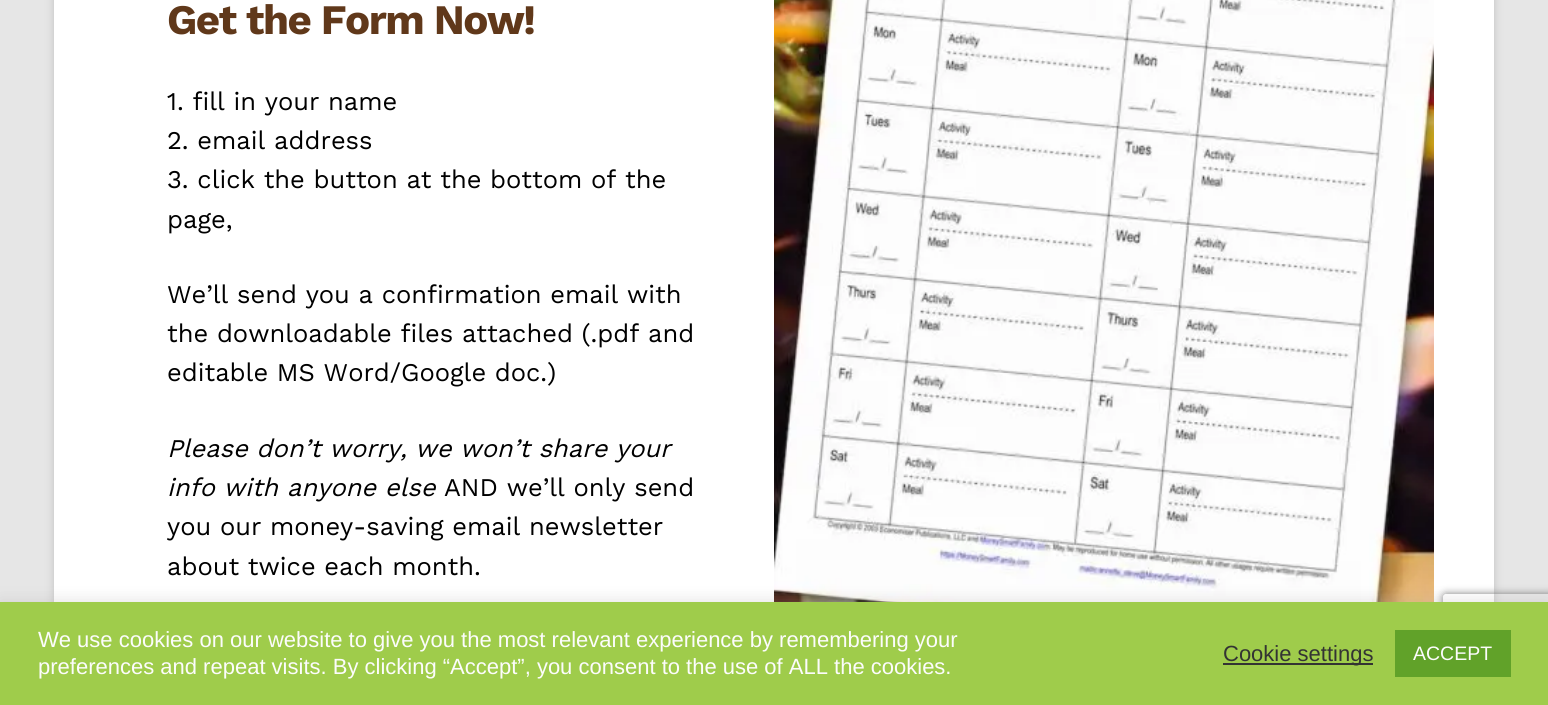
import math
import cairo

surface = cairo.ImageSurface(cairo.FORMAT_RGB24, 1548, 705)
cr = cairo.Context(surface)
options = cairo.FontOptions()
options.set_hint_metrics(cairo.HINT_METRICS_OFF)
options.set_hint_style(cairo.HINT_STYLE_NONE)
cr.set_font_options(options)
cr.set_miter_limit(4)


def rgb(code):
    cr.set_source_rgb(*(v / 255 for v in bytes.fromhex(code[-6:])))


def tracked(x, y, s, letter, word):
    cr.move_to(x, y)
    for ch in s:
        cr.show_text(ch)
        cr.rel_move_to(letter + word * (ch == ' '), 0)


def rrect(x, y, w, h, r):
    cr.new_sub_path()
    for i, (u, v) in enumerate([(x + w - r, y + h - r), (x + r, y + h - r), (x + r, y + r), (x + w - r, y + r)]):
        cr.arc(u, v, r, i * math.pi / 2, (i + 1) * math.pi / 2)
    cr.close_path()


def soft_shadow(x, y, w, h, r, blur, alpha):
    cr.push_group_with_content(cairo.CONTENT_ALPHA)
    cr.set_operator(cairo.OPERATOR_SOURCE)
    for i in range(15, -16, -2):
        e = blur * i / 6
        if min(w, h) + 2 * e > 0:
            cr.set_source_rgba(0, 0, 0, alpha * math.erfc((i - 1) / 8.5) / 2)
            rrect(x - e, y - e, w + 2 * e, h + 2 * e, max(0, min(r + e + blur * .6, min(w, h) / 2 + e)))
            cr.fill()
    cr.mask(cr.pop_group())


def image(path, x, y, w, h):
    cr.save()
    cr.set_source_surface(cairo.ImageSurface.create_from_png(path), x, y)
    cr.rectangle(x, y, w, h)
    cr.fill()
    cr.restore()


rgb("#e6e6e6")
cr.paint()
rgb("#646464")
soft_shadow(54, -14, 1440, 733, 0, 4.5, 0.3)
rgb("#ffffff")
cr.rectangle(54, 0, 1440, 602)
cr.fill()
image("img/1.png", 774, 0, 660, 602)
cr.save()
cr.set_fill_rule(cairo.FILL_RULE_EVEN_ODD)
cr.new_path()
cr.move_to(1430, 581)
cr.line_to(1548, 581)
cr.line_to(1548, 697)
cr.line_to(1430, 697)
cr.close_path()
cr.move_to(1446, 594)
cr.line_to(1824, 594)
cr.curve_to(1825.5, 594, 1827, 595.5, 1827, 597)
cr.line_to(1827, 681)
cr.curve_to(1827, 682.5, 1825.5, 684, 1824, 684)
cr.line_to(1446, 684)
cr.curve_to(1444.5, 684, 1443, 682.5, 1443, 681)
cr.line_to(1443, 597)
cr.curve_to(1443, 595.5, 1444.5, 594, 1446, 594)
cr.close_path()
cr.clip()
rgb("#808080")
soft_shadow(1443, 594, 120, 90, 3, 4, 1)
cr.restore()
rgb("#acabab")
soft_shadow(0, 600, 1548, 104, 0, 7.5, 0.3)
for x, y, w, h, color in [
    (0, 602, 1548, 103, "#9fcc4b"),
    (1223, 663, 150, 2, "#333333"),
    (1395, 630, 116, 47, "#61a229"),
]:
    rgb(color)
    cr.rectangle(x, y, w, h)
    cr.fill()
cr.select_font_face("Work Sans", cairo.FONT_SLANT_NORMAL, cairo.FONT_WEIGHT_BOLD)
cr.set_font_size(42)
rgb("#60381a")
tracked(167, 34, "Get the Form Now!", -1.5, 0)
cr.select_font_face("Work Sans")
cr.set_font_size(25.5)
rgb("#000000")
for x, y, s in [
    (167, 110, "1. fill in your name"),
    (167, 149, "2. email address"),
    (167, 188, "3. click the button at the bottom of the"),
    (167, 228, "page,"),
    (167, 303, "We’ll send you a confirmation email with"),
    (167, 342, "the downloadable files attached (.pdf and"),
    (167, 381, "editable MS Word/Google doc.)"),
]:
    cr.move_to(x, y)
    cr.show_text(s)
cr.select_font_face("Work Sans", cairo.FONT_SLANT_ITALIC)
cr.move_to(167, 457)
cr.show_text("Please don’t worry, we won’t share your")
cr.move_to(167, 496)
cr.show_text("info with anyone else")
cr.select_font_face("Work Sans")
for x, y, s in [
    (444, 496, "AND we’ll only send"),
    (167, 535, "you our money-saving email newsletter"),
    (167, 575, "about twice each month."),
]:
    cr.move_to(x, y)
    cr.show_text(s)
cr.select_font_face("Liberation Sans")
cr.set_font_size(22)
rgb("#fcfcfc")
cr.move_to(38, 647)
cr.show_text("We use cookies on our website to give you the most relevant experience by remembering your")
cr.move_to(38, 674)
cr.show_text("preferences and repeat visits. By clicking “Accept”, you consent to the use of ALL the cookies.")
rgb("#333333")
cr.move_to(1223, 661)
cr.show_text("Cookie settings")
cr.set_font_size(19.5)
rgb("#fcfcfc")
cr.move_to(1413, 660)
cr.show_text("ACCEPT")
surface.write_to_png("page.png")
